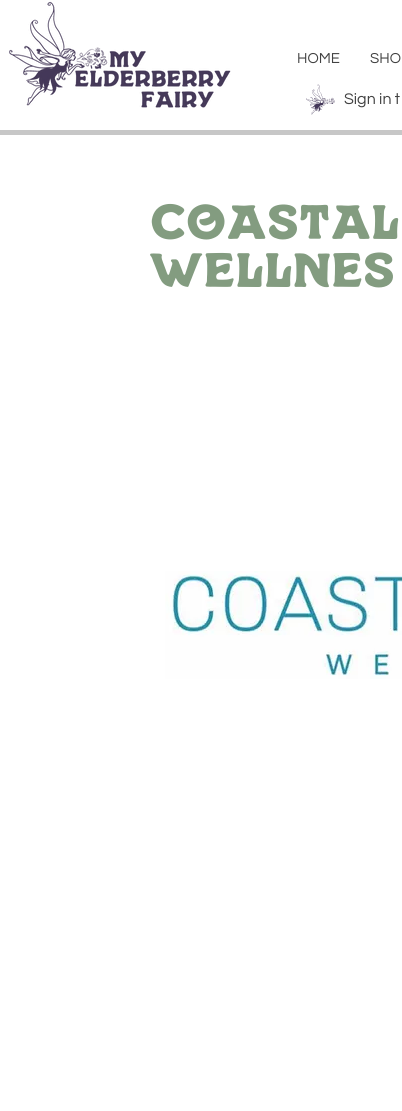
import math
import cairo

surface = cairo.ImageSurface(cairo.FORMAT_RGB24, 402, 1111)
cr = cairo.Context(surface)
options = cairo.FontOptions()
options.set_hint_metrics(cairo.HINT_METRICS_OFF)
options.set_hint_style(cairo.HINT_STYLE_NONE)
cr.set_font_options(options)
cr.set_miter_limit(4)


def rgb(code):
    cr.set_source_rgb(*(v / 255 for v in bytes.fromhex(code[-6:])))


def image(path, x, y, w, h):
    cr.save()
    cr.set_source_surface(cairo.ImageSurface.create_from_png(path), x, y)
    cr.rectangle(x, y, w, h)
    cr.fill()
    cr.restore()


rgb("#ffffff")
cr.paint()
image("img/1.png", 9, 1, 222, 107)
image("img/2.png", 306, 84, 29, 31)
rgb("#c7c7c7")
cr.rectangle(0, 130, 402, 5)
cr.fill()
image("img/3.png", 165, 571, 237, 108)
cr.select_font_face("Questrial")
cr.set_font_size(15)
rgb("#424242")
cr.move_to(297, 63)
cr.show_text("HOME")
cr.move_to(370, 63)
cr.show_text("SHO")
cr.set_font_size(16)
cr.move_to(344, 104)
cr.show_text("Sign in t")
cr.select_font_face("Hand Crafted")
cr.set_font_size(48)
rgb("#839c80")
cr.move_to(150, 239)
cr.show_text("Coastal")
cr.move_to(150, 287)
cr.show_text("Wellnes")
surface.write_to_png("page.png")
